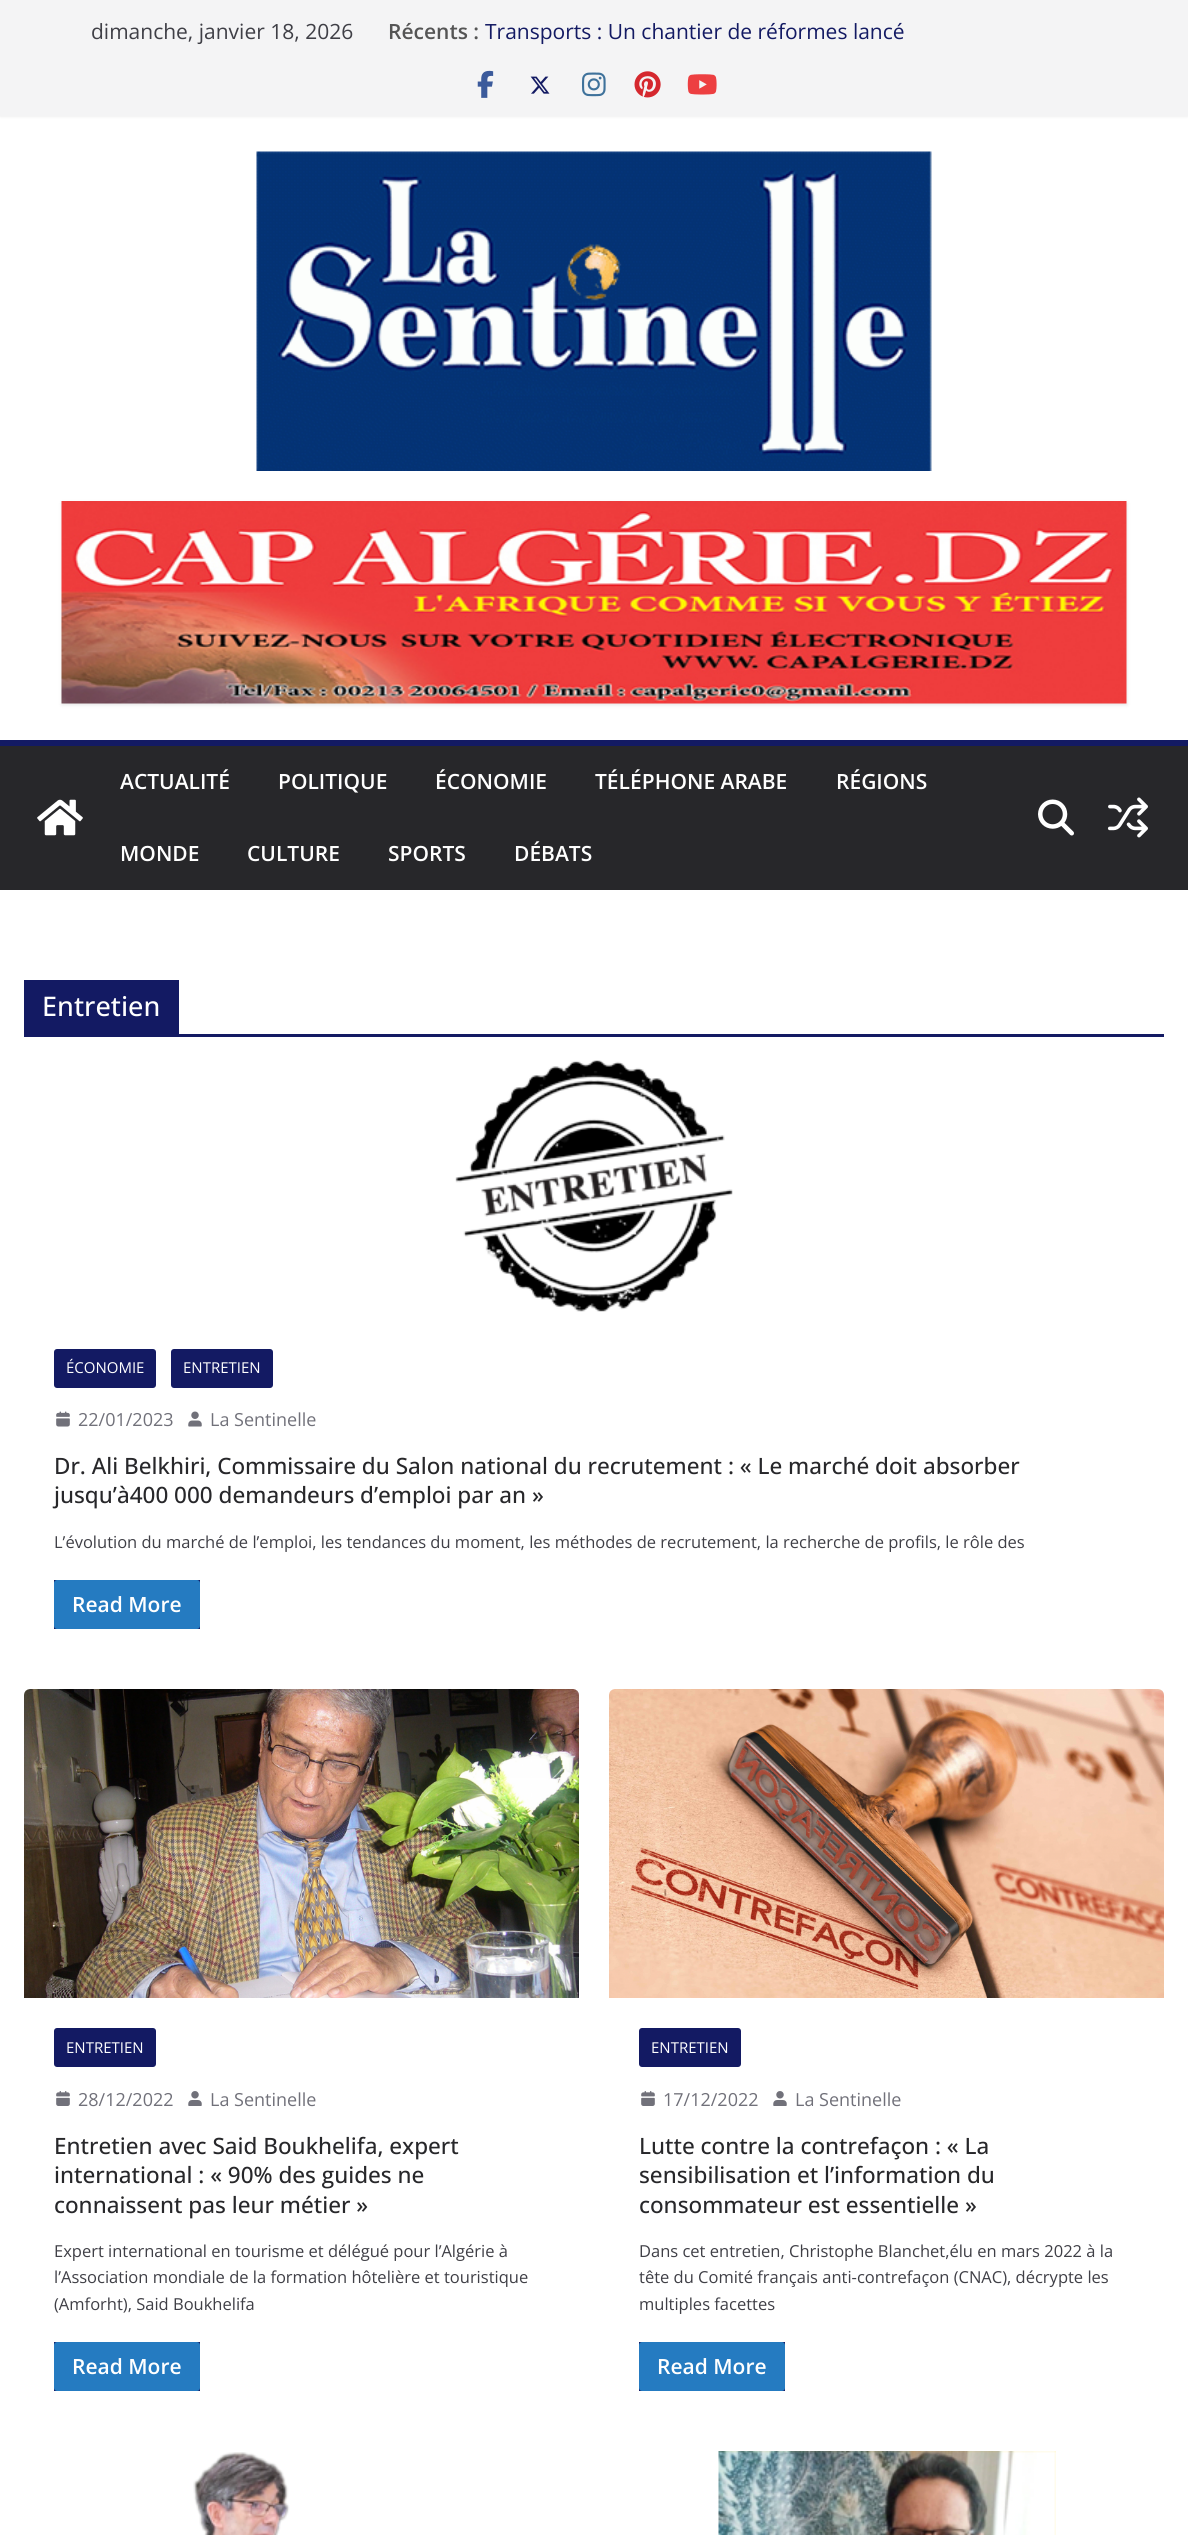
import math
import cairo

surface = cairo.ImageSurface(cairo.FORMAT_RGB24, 1188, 2535)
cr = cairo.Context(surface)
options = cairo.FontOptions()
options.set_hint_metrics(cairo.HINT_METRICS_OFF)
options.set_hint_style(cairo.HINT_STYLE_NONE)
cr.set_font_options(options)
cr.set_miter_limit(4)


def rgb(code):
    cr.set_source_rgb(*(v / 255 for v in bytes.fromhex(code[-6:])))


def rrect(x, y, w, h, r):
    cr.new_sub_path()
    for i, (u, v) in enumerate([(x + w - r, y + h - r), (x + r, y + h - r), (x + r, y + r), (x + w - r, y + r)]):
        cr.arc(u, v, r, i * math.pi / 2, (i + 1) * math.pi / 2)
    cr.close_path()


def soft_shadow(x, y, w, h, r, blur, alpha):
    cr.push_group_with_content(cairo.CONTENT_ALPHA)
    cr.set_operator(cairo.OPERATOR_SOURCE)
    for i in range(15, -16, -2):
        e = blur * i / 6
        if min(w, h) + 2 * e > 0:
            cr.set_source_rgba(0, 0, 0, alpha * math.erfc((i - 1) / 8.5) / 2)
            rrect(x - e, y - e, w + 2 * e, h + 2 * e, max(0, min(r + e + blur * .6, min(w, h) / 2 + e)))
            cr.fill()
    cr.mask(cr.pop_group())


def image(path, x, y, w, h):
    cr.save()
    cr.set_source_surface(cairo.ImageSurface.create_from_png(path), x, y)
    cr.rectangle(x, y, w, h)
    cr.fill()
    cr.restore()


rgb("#ffffff")
cr.paint()
rgb("#000000")
soft_shadow(0, 0, 1188, 116, 0, 1.5, 0.1)
rgb("#f4f4f5")
cr.rectangle(0, 0, 1188, 116)
cr.fill()
image("img/1.png", 477, 70, 17, 28)
image("img/2.png", 530, 76, 20, 18)
image("img/3.png", 582, 72, 24, 25)
image("img/4.png", 634, 71, 27, 27)
image("img/5.png", 687, 74, 30, 21)
image("img/6.png", 256, 151, 676, 320)
rgb("#000000")
soft_shadow(62, 503, 1065, 202, 0, 2, 0.1)
image("img/7.png", 61, 501, 1066, 203)
rgb("#27272a")
cr.rectangle(0, 746, 1188, 144)
cr.fill()
rgb("#131a63")
cr.rectangle(0, 740, 1188, 6)
cr.fill()
image("img/8.png", 37, 799, 46, 37)
image("img/9.png", 1038, 799, 36, 37)
image("img/10.png", 1107, 797, 41, 41)
cr.rectangle(24, 1034, 1140, 3)
cr.fill()
cr.rectangle(24, 980, 155, 54)
cr.fill()
image("img/11.png", 455, 1060, 278, 252)
rrect(54, 1349, 102, 39, 3)
cr.fill()
rrect(171, 1349, 102, 39, 3)
cr.fill()
image("img/12.png", 56, 1411, 14, 16)
image("img/13.png", 188, 1411, 14, 16)
cr.rectangle(54, 1580, 146, 49)
cr.fill()
rgb("#257bc1")
rrect(54, 1580, 146, 49, 3)
cr.fill()
image("img/14.png", 24, 1689, 555, 309)
rgb("#131a63")
rrect(54, 2028, 102, 39, 3)
cr.fill()
image("img/15.png", 56, 2091, 14, 15)
image("img/16.png", 188, 2091, 14, 15)
cr.rectangle(54, 2342, 146, 49)
cr.fill()
rgb("#257bc1")
rrect(54, 2342, 146, 49, 3)
cr.fill()
image("img/17.png", 609, 1689, 555, 309)
rgb("#131a63")
rrect(639, 2028, 102, 39, 3)
cr.fill()
image("img/15.png", 641, 2091, 14, 15)
image("img/16.png", 773, 2091, 14, 15)
cr.rectangle(639, 2342, 146, 49)
cr.fill()
rgb("#257bc1")
rrect(639, 2342, 146, 49, 3)
cr.fill()
image("img/18.png", 193, 2452, 97, 83)
image("img/19.png", 718, 2451, 338, 84)
cr.select_font_face("Open Sans")
cr.set_font_size(21)
rgb("#3f3f46")
cr.move_to(91, 39)
cr.show_text("dimanche, janvier 18, 2026")
cr.select_font_face("Open Sans SemiBold")
rgb("#555555")
cr.move_to(388, 39)
cr.show_text("Récents :")
cr.select_font_face("Open Sans")
rgb("#131a63")
cr.move_to(485, 39)
cr.show_text("Transports : Un chantier de réformes lancé")
cr.select_font_face("Open Sans SemiBold")
rgb("#ffffff")
for x, y, s in [
    (120, 789, "ACTUALITÉ"),
    (278, 789, "POLITIQUE"),
    (435, 789, "ÉCONOMIE"),
    (595, 789, "TÉLÉPHONE ARABE"),
    (836, 789, "RÉGIONS"),
    (120, 861, "MONDE"),
    (247, 861, "CULTURE"),
    (388, 861, "SPORTS"),
    (514, 861, "DÉBATS"),
]:
    cr.move_to(x, y)
    cr.show_text(s)
cr.select_font_face("Open Sans Medium")
cr.set_font_size(27)
cr.move_to(42, 1016)
cr.show_text("Entretien")
cr.select_font_face("Open Sans")
cr.set_font_size(15)
cr.move_to(66, 1373)
cr.show_text("ÉCONOMIE")
cr.move_to(183, 1373)
cr.show_text("ENTRETIEN")
cr.set_font_size(18)
rgb("#71717a")
cr.move_to(78, 1426)
cr.show_text("22/01/2023")
cr.move_to(210, 1426)
cr.show_text("La Sentinelle")
cr.select_font_face("Open Sans Medium")
cr.set_font_size(22.5)
rgb("#27272a")
cr.move_to(54, 1474)
cr.show_text("Dr. Ali Belkhiri, Commissaire du Salon national du recrutement : « Le marché doit absorber")
cr.move_to(54, 1503)
cr.show_text("jusqu’à400 000 demandeurs d’emploi par an »")
cr.select_font_face("Open Sans")
cr.set_font_size(16.5)
rgb("#3f3f46")
cr.move_to(54, 1548)
cr.show_text("L’évolution du marché de l’emploi, les tendances du moment, les méthodes de recrutement, la recherche de profils, le rôle des")
cr.select_font_face("Open Sans SemiBold")
cr.set_font_size(21)
rgb("#ffffff")
cr.move_to(72, 1612)
cr.show_text("Read More")
cr.select_font_face("Open Sans")
cr.set_font_size(15)
cr.move_to(66, 2053)
cr.show_text("ENTRETIEN")
cr.set_font_size(18)
rgb("#71717a")
cr.move_to(78, 2106)
cr.show_text("28/12/2022")
cr.move_to(210, 2106)
cr.show_text("La Sentinelle")
cr.select_font_face("Open Sans Medium")
cr.set_font_size(22.5)
rgb("#27272a")
for x, y, s in [
    (54, 2154, "Entretien avec Said Boukhelifa, expert"),
    (54, 2183, "international : « 90% des guides ne"),
    (54, 2213, "connaissent pas leur métier »"),
]:
    cr.move_to(x, y)
    cr.show_text(s)
cr.select_font_face("Open Sans")
cr.set_font_size(16.5)
rgb("#3f3f46")
for x, y, s in [
    (54, 2257, "Expert international en tourisme et délégué pour l’Algérie à"),
    (54, 2283, "l’Association mondiale de la formation hôtelière et touristique"),
    (54, 2310, "(Amforht), Said Boukhelifa"),
]:
    cr.move_to(x, y)
    cr.show_text(s)
cr.select_font_face("Open Sans SemiBold")
cr.set_font_size(21)
rgb("#ffffff")
cr.move_to(72, 2374)
cr.show_text("Read More")
cr.select_font_face("Open Sans")
cr.set_font_size(15)
cr.move_to(651, 2053)
cr.show_text("ENTRETIEN")
cr.set_font_size(18)
rgb("#71717a")
cr.move_to(663, 2106)
cr.show_text("17/12/2022")
cr.move_to(795, 2106)
cr.show_text("La Sentinelle")
cr.select_font_face("Open Sans Medium")
cr.set_font_size(22.5)
rgb("#27272a")
for x, y, s in [
    (639, 2154, "Lutte contre la contrefaçon : « La"),
    (639, 2183, "sensibilisation et l’information du"),
    (639, 2213, "consommateur est essentielle »"),
]:
    cr.move_to(x, y)
    cr.show_text(s)
cr.select_font_face("Open Sans")
cr.set_font_size(16.5)
rgb("#3f3f46")
for x, y, s in [
    (639, 2257, "Dans cet entretien, Christophe Blanchet,élu en mars 2022 à la"),
    (639, 2283, "tête du Comité français anti-contrefaçon (CNAC), décrypte les"),
    (639, 2310, "multiples facettes"),
]:
    cr.move_to(x, y)
    cr.show_text(s)
cr.select_font_face("Open Sans SemiBold")
cr.set_font_size(21)
rgb("#ffffff")
cr.move_to(657, 2374)
cr.show_text("Read More")
surface.write_to_png("page.png")
